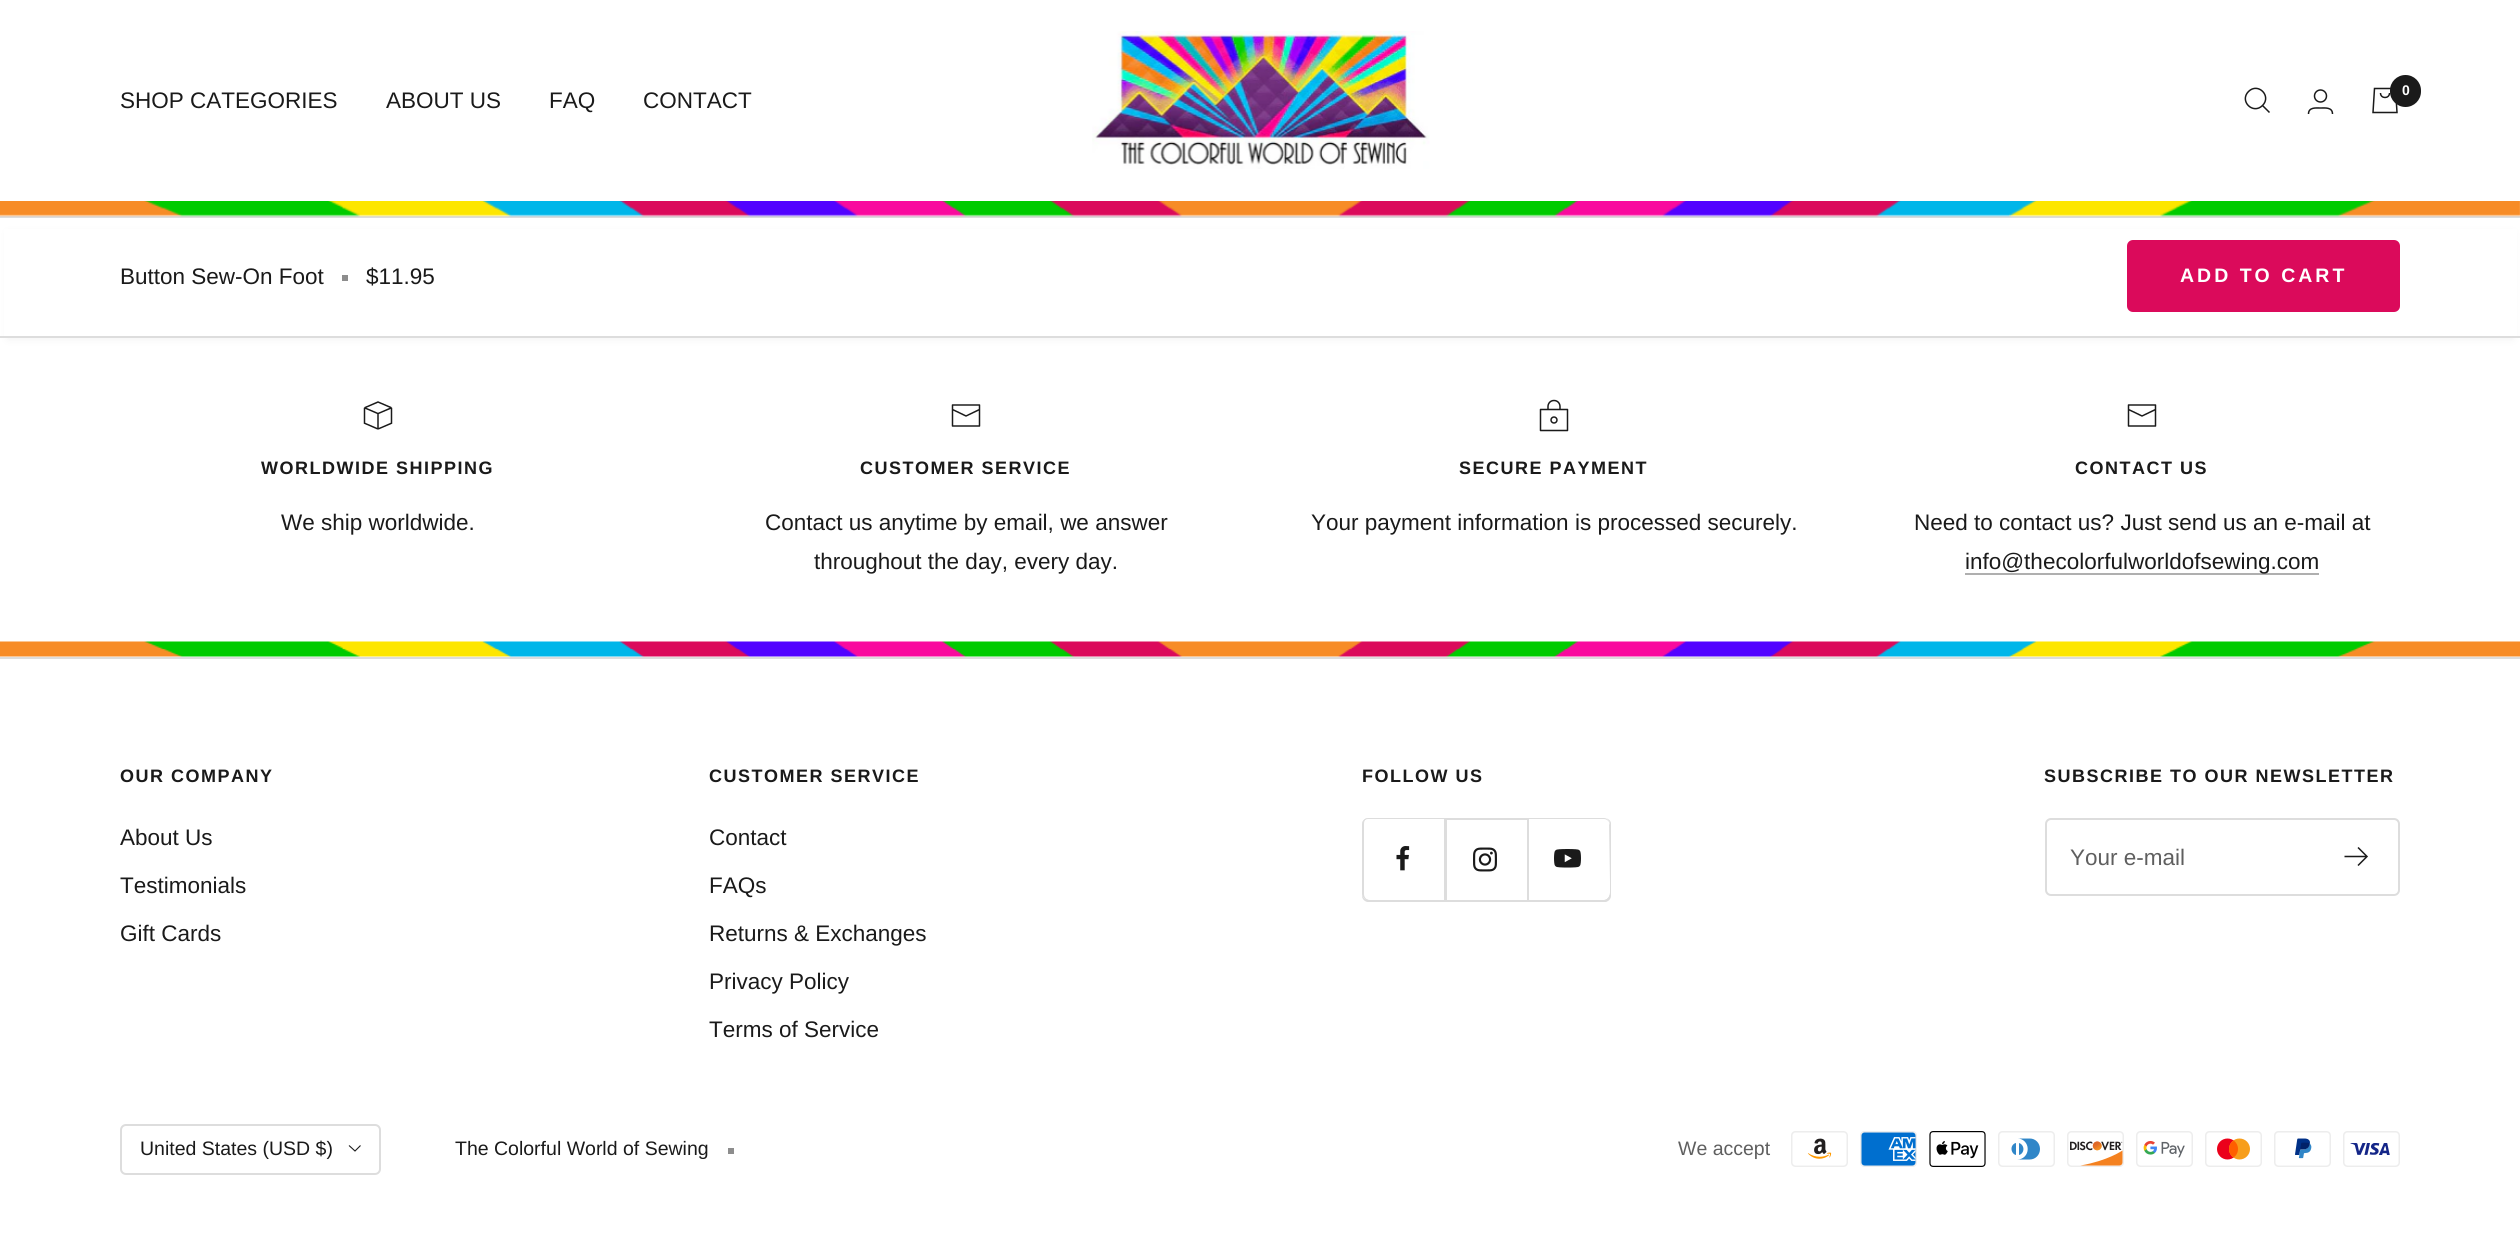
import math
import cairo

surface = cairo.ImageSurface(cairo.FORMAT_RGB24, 2520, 1249)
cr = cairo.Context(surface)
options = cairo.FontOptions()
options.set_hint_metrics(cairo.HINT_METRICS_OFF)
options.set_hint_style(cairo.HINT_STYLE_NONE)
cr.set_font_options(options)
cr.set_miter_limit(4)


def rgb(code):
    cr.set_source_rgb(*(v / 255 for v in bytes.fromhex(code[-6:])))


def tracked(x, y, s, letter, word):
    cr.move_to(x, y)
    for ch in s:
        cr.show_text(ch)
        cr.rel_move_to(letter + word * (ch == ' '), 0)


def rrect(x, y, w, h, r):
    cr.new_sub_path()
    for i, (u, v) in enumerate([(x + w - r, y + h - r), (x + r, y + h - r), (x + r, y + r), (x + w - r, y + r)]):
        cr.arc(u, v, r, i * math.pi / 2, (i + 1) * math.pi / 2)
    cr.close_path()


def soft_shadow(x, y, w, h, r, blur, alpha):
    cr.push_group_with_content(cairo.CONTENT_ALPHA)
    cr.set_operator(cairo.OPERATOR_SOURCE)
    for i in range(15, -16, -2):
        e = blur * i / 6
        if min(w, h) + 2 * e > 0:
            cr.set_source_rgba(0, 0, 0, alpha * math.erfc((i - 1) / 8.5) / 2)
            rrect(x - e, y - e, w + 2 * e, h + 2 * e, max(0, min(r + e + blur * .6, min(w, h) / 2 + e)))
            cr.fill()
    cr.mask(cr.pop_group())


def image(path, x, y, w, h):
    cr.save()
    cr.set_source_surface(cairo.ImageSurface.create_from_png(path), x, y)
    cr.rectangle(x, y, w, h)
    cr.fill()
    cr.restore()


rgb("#ffffff")
cr.paint()
image("img/1.png", 1092, 31, 338, 138)
cr.new_path()
cr.move_to(2262.5, 105.5)
cr.curve_to(2272, 96, 2258, 82, 2248.5, 91.5)
cr.curve_to(2239, 101, 2253, 115, 2262.5, 105.5)
cr.close_path()
cr.move_to(2262.5, 105.5)
cr.line_to(2269.5, 112.5)
rgb("#1a1a1a")
cr.set_line_width(1.5)
cr.stroke()
cr.arc(2320.5, 96, 6, 0, 2 * math.pi)
cr.stroke()
cr.new_path()
cr.move_to(2308.5, 114)
cr.curve_to(2308.5, 107, 2316, 108, 2320.5, 108)
cr.curve_to(2325, 108, 2332.5, 107, 2332.5, 114)
cr.stroke()
cr.new_path()
cr.move_to(2374.5, 88.5)
cr.line_to(2395.5, 88.5)
cr.line_to(2397, 112.5)
cr.line_to(2373, 112.5)
cr.close_path()
cr.move_to(2380.5, 93)
cr.curve_to(2380.5, 99, 2389.5, 99, 2389.5, 93)
cr.stroke()
rrect(2390, 75, 31, 32, 15.5)
cr.fill()
rgb("#dddddd")
cr.rectangle(0, 216, 2520, 2)
cr.fill()
image("img/2.png", 0, 201, 2520, 16)
rgb("#dddddd")
soft_shadow(8, 233, 2505, 106, 0, 4, 0.4)
for x, y, w, h, color in [
    (4, 229, 2513, 107, "#ffffff"),
    (0, 336, 2520, 2, "#dddddd"),
    (342, 275, 6, 6, "#8d8d8d"),
]:
    rgb(color)
    cr.rectangle(x, y, w, h)
    cr.fill()
rgb("#db0a5b")
rrect(2127, 240, 273, 72, 6)
cr.fill()
image("img/3.png", 363, 401, 30, 29)
cr.new_path()
cr.move_to(979.5, 409.5)
cr.line_to(979.5, 405)
cr.line_to(952.5, 405)
cr.line_to(952.5, 409.5)
cr.move_to(979.5, 409.5)
cr.line_to(979.5, 426)
cr.line_to(952.5, 426)
cr.line_to(952.5, 409.5)
cr.move_to(979.5, 409.5)
cr.line_to(966, 416)
cr.line_to(952.5, 409.5)
rgb("#1a1a1a")
cr.set_line_cap(cairo.LINE_CAP_ROUND)
cr.set_line_join(cairo.LINE_JOIN_ROUND)
cr.stroke()
image("img/4.png", 1539, 399, 30, 33)
cr.new_path()
cr.move_to(2155.5, 409.5)
cr.line_to(2155.5, 405)
cr.line_to(2128.5, 405)
cr.line_to(2128.5, 409.5)
cr.move_to(2155.5, 409.5)
cr.line_to(2155.5, 426)
cr.line_to(2128.5, 426)
cr.line_to(2128.5, 409.5)
cr.move_to(2155.5, 409.5)
cr.line_to(2142, 416)
cr.line_to(2128.5, 409.5)
cr.stroke()
rgb("#afafaf")
cr.rectangle(1965, 573, 354, 2)
cr.fill()
image("img/5.png", 0, 641, 2520, 16)
rgb("#dddddd")
cr.rectangle(0, 657, 2520, 2)
cr.fill()
cr.new_path()
cr.move_to(1365, 899)
cr.curve_to(1366, 901, 1368, 902, 1370, 902)
cr.line_to(1446, 902)
cr.line_to(1446, 819)
cr.line_to(1444, 819)
cr.line_to(1444, 900)
cr.line_to(1368, 900)
cr.close_path()
cr.fill()
cr.new_path()
cr.move_to(1362, 894)
cr.line_to(1362, 896)
cr.curve_to(1362, 899, 1365, 902, 1368, 902)
cr.line_to(1445, 902)
cr.line_to(1445, 819)
cr.line_to(1444, 819)
cr.line_to(1444, 900)
cr.line_to(1368, 900)
cr.curve_to(1365, 900, 1362, 897, 1362, 894)
cr.close_path()
cr.fill()
cr.new_path()
cr.move_to(1368, 819)
cr.line_to(1444, 819)
cr.line_to(1444, 900)
cr.line_to(1445, 900)
cr.line_to(1445, 818)
cr.line_to(1368, 818)
cr.curve_to(1365, 818, 1362, 821, 1362, 824)
cr.line_to(1362, 825)
cr.curve_to(1362, 822, 1365, 819, 1368, 819)
cr.close_path()
cr.fill()
cr.new_path()
cr.move_to(1368, 818)
cr.curve_to(1365, 818, 1362, 821, 1362, 824)
cr.line_to(1362, 894)
cr.curve_to(1362, 897, 1365, 900, 1368, 900)
cr.line_to(1370, 900)
cr.curve_to(1366, 900, 1364, 897, 1364, 894)
cr.line_to(1364, 824)
cr.curve_to(1364, 820, 1366, 818, 1370, 818)
cr.close_path()
cr.fill()
image("img/6.png", 1396, 846, 14, 25)
cr.new_path()
cr.move_to(1446, 900)
cr.line_to(1446, 902)
cr.line_to(1529, 902)
cr.line_to(1529, 819)
cr.line_to(1527, 819)
cr.line_to(1527, 900)
cr.close_path()
cr.fill()
for x, y, w, h, color in [
    (1527, 818, 2, 1, "#dddddd"),
    (1445, 818, 82, 2, "#dddddd"),
    (1446, 818, 1, 82, "#dddddd"),
]:
    rgb(color)
    cr.rectangle(x, y, w, h)
    cr.fill()
image("img/7.png", 1473, 847, 24, 25)
cr.new_path()
cr.move_to(1529, 900)
cr.line_to(1529, 902)
cr.line_to(1605, 902)
cr.curve_to(1608, 902, 1611, 899, 1611, 896)
cr.line_to(1611, 825)
cr.curve_to(1611, 823, 1610, 821, 1608, 820)
cr.curve_to(1609, 821, 1610, 822, 1610, 824)
cr.line_to(1610, 894)
cr.curve_to(1610, 897, 1607, 900, 1604, 900)
cr.close_path()
cr.fill()
cr.new_path()
cr.move_to(1527, 900)
cr.line_to(1527, 902)
cr.line_to(1604, 902)
cr.curve_to(1607, 902, 1610, 899, 1610, 896)
cr.line_to(1610, 825)
cr.line_to(1609, 822)
cr.line_to(1610, 882)
cr.curve_to(1610, 886, 1612, 898, 1605, 900)
cr.close_path()
cr.fill()
cr.new_path()
cr.move_to(1604, 900)
cr.line_to(1605, 900)
cr.curve_to(1608, 900, 1611, 897, 1611, 894)
cr.line_to(1611, 824)
cr.curve_to(1611, 821, 1609, 819, 1606, 818)
cr.curve_to(1608, 819, 1610, 821, 1610, 824)
cr.line_to(1610, 894)
cr.curve_to(1610, 897, 1607, 900, 1604, 900)
cr.close_path()
cr.fill()
cr.new_path()
cr.move_to(1527, 819)
cr.line_to(1604, 819)
cr.curve_to(1607, 819, 1610, 822, 1610, 825)
cr.line_to(1610, 824)
cr.curve_to(1610, 821, 1607, 818, 1604, 818)
cr.line_to(1527, 818)
cr.close_path()
cr.fill()
image("img/8.png", 1554, 849, 27, 19)
rrect(2046, 819, 353, 76, 5)
cr.set_line_width(2)
cr.set_line_cap(cairo.LINE_CAP_BUTT)
cr.set_line_join(cairo.LINE_JOIN_MITER)
cr.stroke()
cr.new_path()
cr.move_to(2344.5, 856.5)
cr.line_to(2367, 856.5)
cr.move_to(2358, 847.5)
cr.line_to(2367, 856.5)
cr.line_to(2358, 865.5)
rgb("#1a1a1a")
cr.set_line_width(1.5)
cr.stroke()
rrect(121, 1125, 259, 49, 5)
rgb("#dddddd")
cr.set_line_width(2)
cr.stroke()
cr.new_path()
cr.move_to(349, 1145.5)
cr.line_to(355, 1151)
cr.line_to(360.5, 1145.5)
rgb("#1a1a1a")
cr.set_line_width(1.1)
cr.stroke()
rgb("#8d8d8d")
cr.rectangle(728, 1148, 6, 6)
cr.fill()
image("img/9.png", 1791, 1131, 57, 36)
image("img/10.png", 1860, 1131, 57, 36)
image("img/11.png", 1929, 1131, 57, 36)
image("img/12.png", 1998, 1131, 57, 36)
image("img/13.png", 2067, 1131, 57, 36)
image("img/14.png", 2136, 1131, 57, 36)
image("img/15.png", 2205, 1131, 57, 36)
image("img/16.png", 2274, 1131, 57, 36)
image("img/17.png", 2343, 1131, 57, 36)
cr.select_font_face("Liberation Sans", cairo.FONT_SLANT_NORMAL, cairo.FONT_WEIGHT_BOLD)
cr.set_font_size(14)
rgb("#ffffff")
cr.move_to(2402, 95)
cr.show_text("0")
cr.select_font_face("Liberation Sans")
cr.set_font_size(22.5)
rgb("#1a1a1a")
for x, y, s in [
    (120, 108, "SHOP CATEGORIES"),
    (386, 108, "ABOUT US"),
    (549, 108, "FAQ"),
    (643, 108, "CONTACT"),
    (120, 284, "Button Sew-On Foot"),
    (366, 284, "$11.95"),
]:
    cr.move_to(x, y)
    cr.show_text(s)
cr.select_font_face("Liberation Sans", cairo.FONT_SLANT_NORMAL, cairo.FONT_WEIGHT_BOLD)
cr.set_font_size(19.5)
rgb("#ffffff")
tracked(2180, 282, "ADD TO CART", 3, 0)
cr.set_font_size(18)
rgb("#1a1a1a")
tracked(261, 474, "WORLDWIDE SHIPPING", 1.5, 0)
cr.select_font_face("Liberation Sans")
cr.set_font_size(22.5)
cr.move_to(281, 530)
cr.show_text("We ship worldwide.")
cr.select_font_face("Liberation Sans", cairo.FONT_SLANT_NORMAL, cairo.FONT_WEIGHT_BOLD)
cr.set_font_size(18)
tracked(860, 474, "CUSTOMER SERVICE", 1.5, 0)
cr.select_font_face("Liberation Sans")
cr.set_font_size(22.5)
cr.move_to(765, 530)
cr.show_text("Contact us anytime by email, we answer")
cr.move_to(814, 569)
cr.show_text("throughout the day, every day.")
cr.select_font_face("Liberation Sans", cairo.FONT_SLANT_NORMAL, cairo.FONT_WEIGHT_BOLD)
cr.set_font_size(18)
tracked(1459, 474, "SECURE PAYMENT", 1.5, 0)
cr.select_font_face("Liberation Sans")
cr.set_font_size(22.5)
cr.move_to(1311, 530)
cr.show_text("Your payment information is processed securely.")
cr.select_font_face("Liberation Sans", cairo.FONT_SLANT_NORMAL, cairo.FONT_WEIGHT_BOLD)
cr.set_font_size(18)
tracked(2075, 474, "CONTACT US", 1.5, 0)
cr.select_font_face("Liberation Sans")
cr.set_font_size(22.5)
cr.move_to(1914, 530)
cr.show_text("Need to contact us? Just send us an e-mail at")
cr.move_to(1965, 569)
cr.show_text("info@thecolorfulworldofsewing.com")
cr.select_font_face("Liberation Sans", cairo.FONT_SLANT_NORMAL, cairo.FONT_WEIGHT_BOLD)
cr.set_font_size(18)
tracked(120, 782, "OUR COMPANY", 1.5, 0)
cr.select_font_face("Liberation Sans")
cr.set_font_size(22.5)
for x, y, s in [
    (120, 845, "About Us"),
    (120, 893, "Testimonials"),
    (120, 941, "Gift Cards"),
]:
    cr.move_to(x, y)
    cr.show_text(s)
cr.select_font_face("Liberation Sans", cairo.FONT_SLANT_NORMAL, cairo.FONT_WEIGHT_BOLD)
cr.set_font_size(18)
tracked(709, 782, "CUSTOMER SERVICE", 1.5, 0)
cr.select_font_face("Liberation Sans")
cr.set_font_size(22.5)
for x, y, s in [
    (709, 845, "Contact"),
    (709, 893, "FAQs"),
    (709, 941, "Returns & Exchanges"),
    (709, 989, "Privacy Policy"),
    (709, 1037, "Terms of Service"),
]:
    cr.move_to(x, y)
    cr.show_text(s)
cr.select_font_face("Liberation Sans", cairo.FONT_SLANT_NORMAL, cairo.FONT_WEIGHT_BOLD)
cr.set_font_size(18)
tracked(1362, 782, "FOLLOW US", 1.5, 0)
tracked(2044, 782, "SUBSCRIBE TO OUR NEWSLETTER", 1.5, 0)
cr.select_font_face("Liberation Sans")
cr.set_font_size(22.5)
rgb("#5f5f5f")
cr.move_to(2070, 865)
cr.show_text("Your e-mail")
cr.set_font_size(19.5)
rgb("#1a1a1a")
cr.move_to(140, 1155)
cr.show_text("United States (USD $)")
cr.move_to(455, 1155)
cr.show_text("The Colorful World of Sewing")
rgb("#5f5f5f")
cr.move_to(1678, 1155)
cr.show_text("We accept")
surface.write_to_png("page.png")
